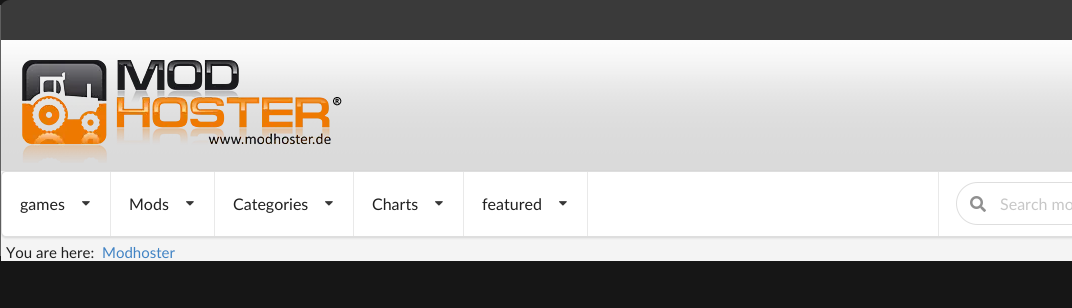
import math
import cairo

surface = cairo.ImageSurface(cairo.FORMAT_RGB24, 1072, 308)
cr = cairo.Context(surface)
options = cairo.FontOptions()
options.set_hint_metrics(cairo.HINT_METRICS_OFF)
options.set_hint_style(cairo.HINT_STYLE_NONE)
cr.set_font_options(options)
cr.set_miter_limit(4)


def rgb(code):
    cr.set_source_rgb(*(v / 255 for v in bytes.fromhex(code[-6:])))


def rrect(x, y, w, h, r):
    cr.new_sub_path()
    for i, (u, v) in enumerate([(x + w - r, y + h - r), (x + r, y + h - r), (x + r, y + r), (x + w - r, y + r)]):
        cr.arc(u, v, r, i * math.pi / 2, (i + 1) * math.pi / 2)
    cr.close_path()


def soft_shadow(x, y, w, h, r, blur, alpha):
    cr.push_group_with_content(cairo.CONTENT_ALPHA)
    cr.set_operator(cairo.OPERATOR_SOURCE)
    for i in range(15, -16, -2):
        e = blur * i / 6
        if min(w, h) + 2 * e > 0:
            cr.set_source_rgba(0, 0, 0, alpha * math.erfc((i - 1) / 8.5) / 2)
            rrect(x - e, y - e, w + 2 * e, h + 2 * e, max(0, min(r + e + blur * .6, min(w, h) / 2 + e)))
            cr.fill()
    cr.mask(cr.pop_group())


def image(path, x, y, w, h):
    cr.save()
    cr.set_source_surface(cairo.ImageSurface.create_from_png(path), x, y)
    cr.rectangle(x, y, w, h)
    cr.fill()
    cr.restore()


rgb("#161616")
cr.paint()
rgb("#3a3a3a")
rrect(0, 0, 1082, 261, 10)
cr.fill()
rgb("#5f5f5f")
cr.rectangle(0, 5, 1, 251)
cr.fill()
image("img/1.png", 1, 40, 1071, 131)
image("img/2.png", 22, 60, 320, 103)
rgb("#f4f4f4")
cr.rectangle(1, 171, 1071, 90)
cr.fill()
rgb("#222426")
soft_shadow(1, 172, 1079, 66, 5, 1, 0.15)
rgb("#ffffff")
rrect(1, 171, 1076, 66, 5)
cr.fill()
rrect(1.5, 171.5, 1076, 65, 4.5)
cr.set_source_rgba(0.133, 0.141, 0.149, 0.15)
cr.set_line_width(1)
cr.stroke()
image("img/3.png", 82, 201, 8, 5)
rgb("#e9e9e9")
cr.rectangle(110, 172, 1, 64)
cr.fill()
image("img/3.png", 186, 201, 8, 5)
cr.rectangle(214, 172, 1, 64)
cr.fill()
image("img/3.png", 325, 201, 8, 5)
cr.rectangle(353, 172, 1, 64)
cr.fill()
image("img/3.png", 435, 201, 8, 5)
cr.rectangle(463, 172, 1, 64)
cr.fill()
image("img/3.png", 559, 201, 8, 5)
cr.rectangle(587, 172, 1, 64)
cr.fill()
cr.rectangle(938, 172, 1, 64)
cr.fill()
rrect(956.5, 182.5, 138, 42, 21)
rgb("#dedede")
cr.stroke()
image("img/4.png", 970, 196, 16, 16)
cr.select_font_face("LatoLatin")
cr.set_font_size(16)
rgb("#202020")
for x, y, s in [
    (20, 210, "games"),
    (129, 210, "Mods"),
    (233, 210, "Categories"),
    (372, 210, "Charts"),
    (482, 210, "featured"),
]:
    cr.move_to(x, y)
    cr.show_text(s)
rgb("#c7c7c7")
cr.move_to(1000, 210)
cr.show_text("Search mo")
cr.set_font_size(15)
rgb("#202020")
cr.move_to(6, 258)
cr.show_text("You are here:")
rgb("#4183c4")
cr.move_to(102, 258)
cr.show_text("Modhoster")
surface.write_to_png("page.png")
